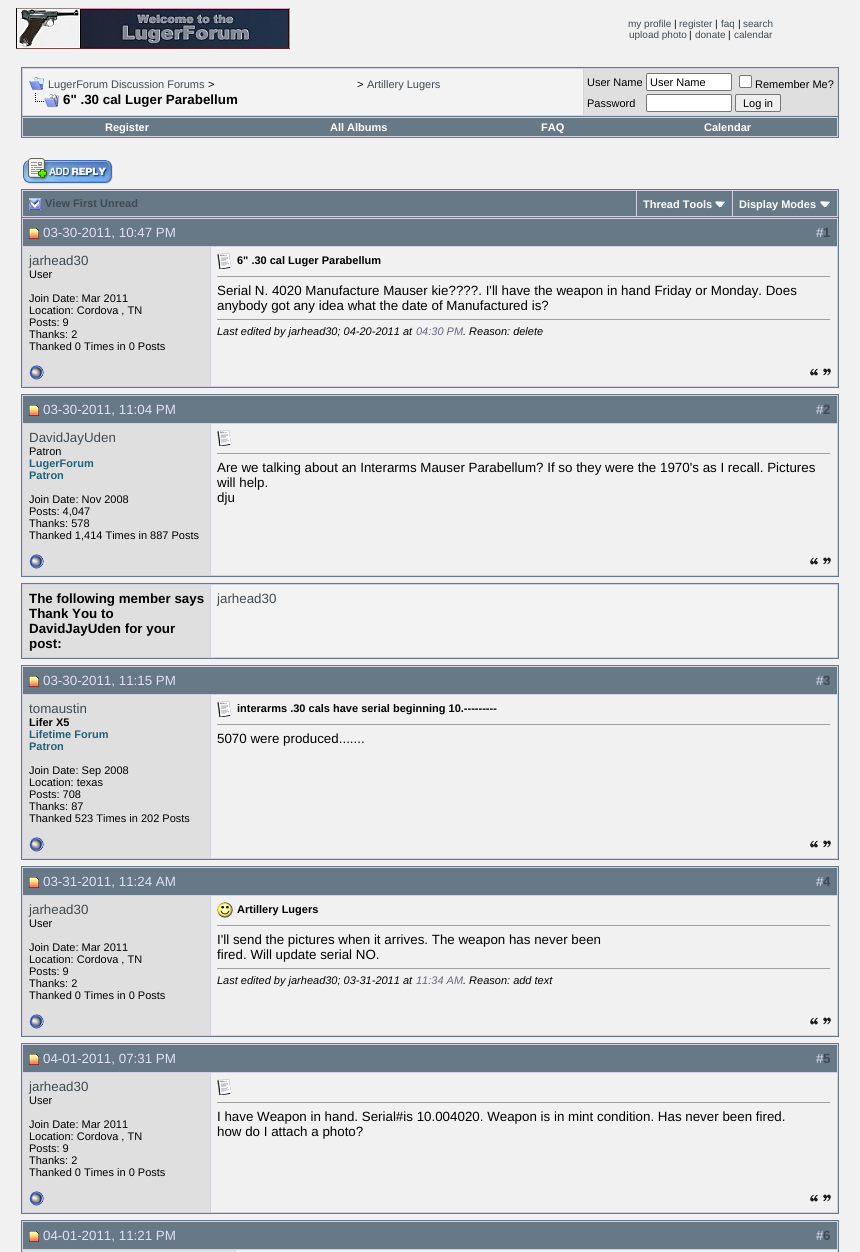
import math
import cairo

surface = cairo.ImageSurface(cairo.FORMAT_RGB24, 860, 1252)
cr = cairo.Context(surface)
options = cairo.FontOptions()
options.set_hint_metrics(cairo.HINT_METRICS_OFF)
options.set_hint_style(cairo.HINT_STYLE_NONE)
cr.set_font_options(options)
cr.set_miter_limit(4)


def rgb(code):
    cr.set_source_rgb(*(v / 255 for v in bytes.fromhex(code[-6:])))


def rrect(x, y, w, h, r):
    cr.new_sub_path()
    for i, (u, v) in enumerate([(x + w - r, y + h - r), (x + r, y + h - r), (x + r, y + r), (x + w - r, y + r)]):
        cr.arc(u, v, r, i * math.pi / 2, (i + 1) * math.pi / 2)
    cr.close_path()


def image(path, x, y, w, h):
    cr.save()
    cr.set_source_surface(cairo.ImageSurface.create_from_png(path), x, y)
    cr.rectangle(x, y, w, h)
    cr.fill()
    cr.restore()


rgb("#f1f1f1")
cr.paint()
image("img/1.png", 16, 8, 274, 41)
rgb("#d1d1e1")
cr.rectangle(21.5, 67.5, 817, 49)
cr.fill_preserve()
rgb("#677887")
cr.set_line_width(1)
cr.stroke()
rgb("#f3f3f3")
cr.rectangle(23, 69, 560, 46)
cr.fill()
image("img/2.png", 29, 77, 15, 13)
image("img/3.png", 35, 93, 24, 14)
rgb("#dfdfdf")
cr.rectangle(584, 69, 253, 46)
cr.fill()
rgb("#ffffff")
rrect(646.5, 73.5, 85, 17, 1.5)
cr.fill_preserve()
rgb("#767676")
cr.stroke()
rgb("#ffffff")
rrect(739.5, 75.5, 12, 12, 1.5)
cr.fill_preserve()
rgb("#767676")
cr.stroke()
rgb("#ffffff")
rrect(646.5, 94.5, 85, 17, 1.5)
cr.fill_preserve()
rgb("#767676")
cr.stroke()
rgb("#efefef")
rrect(735.5, 94.5, 45, 17, 1.5)
cr.fill_preserve()
rgb("#767676")
cr.stroke()
for x, y, w, h, color in [
    (22, 117, 816, 20, "#d1d1e1"),
    (838, 117, 1, 21, "#677887"),
    (21, 137, 818, 1, "#677887"),
    (21, 117, 1, 21, "#677887"),
    (23, 118, 814, 18, "#677887"),
]:
    rgb(color)
    cr.rectangle(x, y, w, h)
    cr.fill()
image("img/4.png", 23, 158, 90, 26)
for x, y, w, h, color in [
    (22, 190, 816, 27, "#d1d1e1"),
    (21, 189, 818, 1, "#677887"),
    (838, 189, 1, 28, "#677887"),
    (21, 189, 1, 28, "#677887"),
    (23, 191, 613, 25, "#677887"),
]:
    rgb(color)
    cr.rectangle(x, y, w, h)
    cr.fill()
image("img/5.png", 29, 198, 12, 12)
cr.rectangle(637, 191, 95, 25)
cr.fill()
image("img/6.png", 715, 201, 11, 7)
cr.rectangle(733, 191, 104, 25)
cr.fill()
image("img/6.png", 820, 201, 11, 7)
cr.rectangle(21.5, 217.5, 817, 170)
cr.stroke()
for x, y, w, h, color in [
    (23, 219, 814, 27, "#677887"),
    (22, 218, 816, 1, "#d1d1e1"),
    (22, 246, 189, 1, "#d1d1e1"),
    (22, 218, 1, 140, "#d1d1e1"),
]:
    rgb(color)
    cr.rectangle(x, y, w, h)
    cr.fill()
image("img/7.png", 29, 228, 10, 11)
for x, y, w, h, color in [
    (837, 218, 1, 169, "#d1d1e1"),
    (211, 246, 627, 1, "#d1d1e1"),
    (23, 247, 187, 139, "#dfdfdf"),
    (210, 247, 1, 140, "#d1d1e1"),
]:
    rgb(color)
    cr.rectangle(x, y, w, h)
    cr.fill()
image("img/8.png", 217, 253, 15, 16)
for x, y, w, h, color in [
    (217, 276, 614, 1, "#9f9f9f"),
    (830, 276, 1, 1, "#eeeeee"),
    (217, 319, 614, 1, "#9f9f9f"),
    (830, 319, 1, 1, "#eeeeee"),
    (22, 386, 816, 1, "#d1d1e1"),
    (22, 358, 1, 29, "#d1d1e1"),
]:
    rgb(color)
    cr.rectangle(x, y, w, h)
    cr.fill()
image("img/9.png", 29, 365, 15, 15)
image("img/10.png", 810, 368, 21, 8)
cr.rectangle(21.5, 394.5, 817, 182)
rgb("#677887")
cr.stroke()
for x, y, w, h, color in [
    (23, 396, 814, 27, "#677887"),
    (22, 395, 816, 1, "#d1d1e1"),
    (22, 423, 189, 1, "#d1d1e1"),
    (22, 395, 1, 152, "#d1d1e1"),
]:
    rgb(color)
    cr.rectangle(x, y, w, h)
    cr.fill()
image("img/7.png", 29, 405, 10, 11)
for x, y, w, h, color in [
    (837, 395, 1, 181, "#d1d1e1"),
    (211, 423, 627, 1, "#d1d1e1"),
    (23, 424, 187, 151, "#dfdfdf"),
    (210, 424, 1, 152, "#d1d1e1"),
]:
    rgb(color)
    cr.rectangle(x, y, w, h)
    cr.fill()
image("img/8.png", 217, 430, 15, 16)
for x, y, w, h, color in [
    (217, 453, 614, 1, "#9f9f9f"),
    (830, 453, 1, 1, "#eeeeee"),
    (22, 575, 816, 1, "#d1d1e1"),
    (22, 547, 1, 29, "#d1d1e1"),
]:
    rgb(color)
    cr.rectangle(x, y, w, h)
    cr.fill()
image("img/9.png", 29, 554, 15, 15)
image("img/10.png", 810, 557, 21, 8)
cr.rectangle(21.5, 583.5, 817, 75)
cr.fill_preserve()
rgb("#677887")
cr.stroke()
rgb("#dfdfdf")
cr.rectangle(23, 585, 187, 72)
cr.fill()
rgb("#f3f3f3")
cr.rectangle(211, 585, 626, 72)
cr.fill()
cr.rectangle(21.5, 665.5, 817, 194)
rgb("#677887")
cr.stroke()
for x, y, w, h, color in [
    (23, 667, 814, 27, "#677887"),
    (22, 666, 816, 1, "#d1d1e1"),
    (22, 694, 189, 1, "#d1d1e1"),
    (22, 666, 1, 164, "#d1d1e1"),
]:
    rgb(color)
    cr.rectangle(x, y, w, h)
    cr.fill()
image("img/7.png", 29, 676, 10, 11)
for x, y, w, h, color in [
    (837, 666, 1, 193, "#d1d1e1"),
    (211, 694, 627, 1, "#d1d1e1"),
    (23, 695, 187, 163, "#dfdfdf"),
    (210, 695, 1, 164, "#d1d1e1"),
]:
    rgb(color)
    cr.rectangle(x, y, w, h)
    cr.fill()
image("img/8.png", 217, 701, 15, 16)
for x, y, w, h, color in [
    (217, 724, 614, 1, "#9f9f9f"),
    (830, 724, 1, 1, "#eeeeee"),
    (22, 858, 816, 1, "#d1d1e1"),
    (22, 830, 1, 29, "#d1d1e1"),
]:
    rgb(color)
    cr.rectangle(x, y, w, h)
    cr.fill()
image("img/9.png", 29, 837, 15, 15)
image("img/10.png", 810, 840, 21, 8)
cr.rectangle(21.5, 866.5, 817, 170)
rgb("#677887")
cr.stroke()
for x, y, w, h, color in [
    (23, 868, 814, 27, "#677887"),
    (22, 867, 816, 1, "#d1d1e1"),
    (22, 895, 189, 1, "#d1d1e1"),
    (22, 867, 1, 140, "#d1d1e1"),
]:
    rgb(color)
    cr.rectangle(x, y, w, h)
    cr.fill()
image("img/7.png", 29, 877, 10, 11)
for x, y, w, h, color in [
    (837, 867, 1, 169, "#d1d1e1"),
    (211, 895, 627, 1, "#d1d1e1"),
    (23, 896, 187, 139, "#dfdfdf"),
    (210, 896, 1, 140, "#d1d1e1"),
]:
    rgb(color)
    cr.rectangle(x, y, w, h)
    cr.fill()
image("img/11.png", 217, 902, 16, 16)
for x, y, w, h, color in [
    (217, 925, 614, 1, "#9f9f9f"),
    (830, 925, 1, 1, "#eeeeee"),
    (217, 968, 614, 1, "#9f9f9f"),
    (830, 968, 1, 1, "#eeeeee"),
    (22, 1035, 816, 1, "#d1d1e1"),
    (22, 1007, 1, 29, "#d1d1e1"),
]:
    rgb(color)
    cr.rectangle(x, y, w, h)
    cr.fill()
image("img/9.png", 29, 1014, 15, 15)
image("img/10.png", 810, 1017, 21, 8)
cr.rectangle(21.5, 1043.5, 817, 170)
rgb("#677887")
cr.stroke()
for x, y, w, h, color in [
    (23, 1045, 814, 27, "#677887"),
    (22, 1044, 816, 1, "#d1d1e1"),
    (22, 1072, 189, 1, "#d1d1e1"),
    (22, 1044, 1, 140, "#d1d1e1"),
]:
    rgb(color)
    cr.rectangle(x, y, w, h)
    cr.fill()
image("img/7.png", 29, 1054, 10, 11)
for x, y, w, h, color in [
    (837, 1044, 1, 169, "#d1d1e1"),
    (211, 1072, 627, 1, "#d1d1e1"),
    (23, 1073, 187, 139, "#dfdfdf"),
    (210, 1073, 1, 140, "#d1d1e1"),
]:
    rgb(color)
    cr.rectangle(x, y, w, h)
    cr.fill()
image("img/8.png", 217, 1079, 15, 16)
for x, y, w, h, color in [
    (217, 1102, 614, 1, "#9f9f9f"),
    (830, 1102, 1, 1, "#eeeeee"),
    (22, 1212, 816, 1, "#d1d1e1"),
    (22, 1184, 1, 29, "#d1d1e1"),
]:
    rgb(color)
    cr.rectangle(x, y, w, h)
    cr.fill()
image("img/9.png", 29, 1191, 15, 15)
image("img/10.png", 810, 1194, 21, 8)
cr.rectangle(21.5, 1220.5, 817, 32)
rgb("#677887")
cr.stroke()
for x, y, w, h, color in [
    (23, 1222, 814, 27, "#677887"),
    (22, 1221, 816, 1, "#d1d1e1"),
    (22, 1249, 214, 1, "#d1d1e1"),
    (22, 1221, 1, 29, "#d1d1e1"),
]:
    rgb(color)
    cr.rectangle(x, y, w, h)
    cr.fill()
image("img/7.png", 29, 1231, 10, 11)
for x, y, w, h, color in [
    (837, 1221, 1, 31, "#d1d1e1"),
    (236, 1249, 602, 1, "#d1d1e1"),
    (22, 1250, 214, 2, "#dfdfdf"),
    (235, 1250, 1, 2, "#d1d1e1"),
    (22, 1250, 1, 2, "#d1d1e1"),
]:
    rgb(color)
    cr.rectangle(x, y, w, h)
    cr.fill()
cr.select_font_face("Liberation Sans")
cr.set_font_size(10)
rgb("#404a53")
cr.move_to(628, 27)
cr.show_text("my profile")
rgb("#000000")
cr.move_to(674, 27)
cr.show_text("|")
rgb("#404a53")
cr.move_to(679, 27)
cr.show_text("register")
rgb("#000000")
cr.move_to(715, 27)
cr.show_text("|")
rgb("#404a53")
cr.move_to(721, 27)
cr.show_text("faq")
rgb("#000000")
cr.move_to(738, 27)
cr.show_text("|")
rgb("#404a53")
cr.move_to(743, 27)
cr.show_text("search")
cr.move_to(629, 38)
cr.show_text("upload photo")
rgb("#000000")
cr.move_to(689, 38)
cr.show_text("|")
rgb("#404a53")
cr.move_to(695, 38)
cr.show_text("donate")
rgb("#000000")
cr.move_to(728, 38)
cr.show_text("|")
rgb("#404a53")
cr.move_to(734, 38)
cr.show_text("calendar")
cr.set_font_size(11)
cr.move_to(48, 88)
cr.show_text("LugerForum Discussion Forums")
rgb("#000000")
cr.move_to(208, 88)
cr.show_text(">")
cr.move_to(357, 88)
cr.show_text(">")
rgb("#404a53")
cr.move_to(367, 88)
cr.show_text("Artillery Lugers")
cr.select_font_face("Liberation Sans", cairo.FONT_SLANT_NORMAL, cairo.FONT_WEIGHT_BOLD)
cr.set_font_size(13.35)
rgb("#000000")
cr.move_to(63, 104)
cr.show_text("6\" .30 cal Luger Parabellum")
cr.select_font_face("Liberation Sans")
cr.set_font_size(11)
for x, y, s in [
    (587, 86, "User Name"),
    (650, 86, "User Name"),
    (755, 88, "Remember Me?"),
    (587, 107, "Password"),
    (743, 107, "Log in"),
]:
    cr.move_to(x, y)
    cr.show_text(s)
cr.select_font_face("Liberation Sans", cairo.FONT_SLANT_NORMAL, cairo.FONT_WEIGHT_BOLD)
rgb("#ffffff")
for x, y, s in [
    (105, 131, "Register"),
    (330, 131, "All Albums"),
    (541, 131, "FAQ"),
    (704, 131, "Calendar"),
]:
    cr.move_to(x, y)
    cr.show_text(s)
rgb("#404a53")
cr.move_to(45, 207)
cr.show_text("View First Unread")
rgb("#ffffff")
cr.move_to(643, 208)
cr.show_text("Thread Tools")
cr.move_to(739, 208)
cr.show_text("Display Modes")
cr.select_font_face("Liberation Sans")
cr.set_font_size(13.35)
rgb("#e0e0f6")
cr.move_to(43, 237)
cr.show_text("03-30-2011, 10:47 PM")
cr.move_to(816, 237)
cr.show_text("#")
cr.select_font_face("Liberation Sans", cairo.FONT_SLANT_NORMAL, cairo.FONT_WEIGHT_BOLD)
rgb("#404a53")
cr.move_to(823, 237)
cr.show_text("1")
cr.select_font_face("Liberation Sans")
cr.move_to(29, 265)
cr.show_text("jarhead30")
cr.set_font_size(11)
rgb("#000000")
for x, y, s in [
    (29, 278, "User"),
    (29, 302, "Join Date: Mar 2011"),
    (29, 314, "Location: Cordova , TN"),
    (29, 326, "Posts: 9"),
    (29, 338, "Thanks: 2"),
    (29, 350, "Thanked 0 Times in 0 Posts"),
]:
    cr.move_to(x, y)
    cr.show_text(s)
cr.select_font_face("Liberation Sans", cairo.FONT_SLANT_NORMAL, cairo.FONT_WEIGHT_BOLD)
cr.move_to(237, 264)
cr.show_text("6\" .30 cal Luger Parabellum")
cr.select_font_face("Liberation Sans")
cr.set_font_size(13.35)
cr.move_to(217, 295)
cr.show_text("Serial N. 4020 Manufacture Mauser kie????. I'll have the weapon in hand Friday or Monday. Does")
cr.move_to(217, 310)
cr.show_text("anybody got any idea what the date of Manufactured is?")
cr.select_font_face("Liberation Sans", cairo.FONT_SLANT_ITALIC)
cr.set_font_size(11)
cr.move_to(217, 335)
cr.show_text("Last edited by jarhead30; 04-20-2011 at")
rgb("#666686")
cr.move_to(416, 335)
cr.show_text("04:30 PM")
rgb("#000000")
cr.move_to(463, 335)
cr.show_text(". Reason: delete")
cr.select_font_face("Liberation Sans")
cr.set_font_size(13.35)
rgb("#e0e0f6")
cr.move_to(43, 414)
cr.show_text("03-30-2011, 11:04 PM")
cr.move_to(816, 414)
cr.show_text("#")
cr.select_font_face("Liberation Sans", cairo.FONT_SLANT_NORMAL, cairo.FONT_WEIGHT_BOLD)
rgb("#404a53")
cr.move_to(823, 414)
cr.show_text("2")
cr.select_font_face("Liberation Sans")
cr.move_to(29, 442)
cr.show_text("DavidJayUden")
cr.set_font_size(11)
rgb("#000000")
cr.move_to(29, 455)
cr.show_text("Patron")
cr.select_font_face("Liberation Sans", cairo.FONT_SLANT_NORMAL, cairo.FONT_WEIGHT_BOLD)
rgb("#236178")
cr.move_to(29, 467)
cr.show_text("LugerForum")
cr.move_to(29, 479)
cr.show_text("Patron")
cr.select_font_face("Liberation Sans")
rgb("#000000")
for x, y, s in [
    (29, 503, "Join Date: Nov 2008"),
    (29, 515, "Posts: 4,047"),
    (29, 527, "Thanks: 578"),
    (29, 539, "Thanked 1,414 Times in 887 Posts"),
]:
    cr.move_to(x, y)
    cr.show_text(s)
cr.set_font_size(13.35)
for x, y, s in [
    (217, 472, "Are we talking about an Interarms Mauser Parabellum? If so they were the 1970's as I recall. Pictures"),
    (217, 487, "will help."),
    (217, 502, "dju"),
]:
    cr.move_to(x, y)
    cr.show_text(s)
cr.select_font_face("Liberation Sans", cairo.FONT_SLANT_NORMAL, cairo.FONT_WEIGHT_BOLD)
for x, y, s in [
    (29, 603, "The following member says"),
    (29, 618, "Thank You to"),
    (29, 633, "DavidJayUden for your"),
    (29, 648, "post:"),
]:
    cr.move_to(x, y)
    cr.show_text(s)
cr.select_font_face("Liberation Sans")
rgb("#404a53")
cr.move_to(217, 603)
cr.show_text("jarhead30")
rgb("#e0e0f6")
cr.move_to(43, 685)
cr.show_text("03-30-2011, 11:15 PM")
cr.move_to(816, 685)
cr.show_text("#")
cr.select_font_face("Liberation Sans", cairo.FONT_SLANT_NORMAL, cairo.FONT_WEIGHT_BOLD)
rgb("#404a53")
cr.move_to(823, 685)
cr.show_text("3")
cr.select_font_face("Liberation Sans")
cr.move_to(29, 713)
cr.show_text("tomaustin")
cr.select_font_face("Liberation Sans", cairo.FONT_SLANT_NORMAL, cairo.FONT_WEIGHT_BOLD)
cr.set_font_size(11)
rgb("#000000")
cr.move_to(29, 726)
cr.show_text("Lifer X5")
rgb("#236178")
cr.move_to(29, 738)
cr.show_text("Lifetime Forum")
cr.move_to(29, 750)
cr.show_text("Patron")
cr.select_font_face("Liberation Sans")
rgb("#000000")
for x, y, s in [
    (29, 774, "Join Date: Sep 2008"),
    (29, 786, "Location: texas"),
    (29, 798, "Posts: 708"),
    (29, 810, "Thanks: 87"),
    (29, 822, "Thanked 523 Times in 202 Posts"),
]:
    cr.move_to(x, y)
    cr.show_text(s)
cr.select_font_face("Liberation Sans", cairo.FONT_SLANT_NORMAL, cairo.FONT_WEIGHT_BOLD)
cr.move_to(237, 712)
cr.show_text("interarms .30 cals have serial beginning 10.---------")
cr.select_font_face("Liberation Sans")
cr.set_font_size(13.35)
cr.move_to(217, 743)
cr.show_text("5070 were produced.......")
rgb("#e0e0f6")
cr.move_to(43, 886)
cr.show_text("03-31-2011, 11:24 AM")
cr.move_to(816, 886)
cr.show_text("#")
cr.select_font_face("Liberation Sans", cairo.FONT_SLANT_NORMAL, cairo.FONT_WEIGHT_BOLD)
rgb("#404a53")
cr.move_to(823, 886)
cr.show_text("4")
cr.select_font_face("Liberation Sans")
cr.move_to(29, 914)
cr.show_text("jarhead30")
cr.set_font_size(11)
rgb("#000000")
for x, y, s in [
    (29, 927, "User"),
    (29, 951, "Join Date: Mar 2011"),
    (29, 963, "Location: Cordova , TN"),
    (29, 975, "Posts: 9"),
    (29, 987, "Thanks: 2"),
    (29, 999, "Thanked 0 Times in 0 Posts"),
]:
    cr.move_to(x, y)
    cr.show_text(s)
cr.select_font_face("Liberation Sans", cairo.FONT_SLANT_NORMAL, cairo.FONT_WEIGHT_BOLD)
cr.move_to(237, 913)
cr.show_text("Artillery Lugers")
cr.select_font_face("Liberation Sans")
cr.set_font_size(13.35)
cr.move_to(217, 944)
cr.show_text("I'll send the pictures when it arrives. The weapon has never been")
cr.move_to(217, 959)
cr.show_text("fired. Will update serial NO.")
cr.select_font_face("Liberation Sans", cairo.FONT_SLANT_ITALIC)
cr.set_font_size(11)
cr.move_to(217, 984)
cr.show_text("Last edited by jarhead30; 03-31-2011 at")
rgb("#666686")
cr.move_to(416, 984)
cr.show_text("11:34 AM")
rgb("#000000")
cr.move_to(463, 984)
cr.show_text(". Reason: add text")
cr.select_font_face("Liberation Sans")
cr.set_font_size(13.35)
rgb("#e0e0f6")
cr.move_to(43, 1063)
cr.show_text("04-01-2011, 07:31 PM")
cr.move_to(816, 1063)
cr.show_text("#")
cr.select_font_face("Liberation Sans", cairo.FONT_SLANT_NORMAL, cairo.FONT_WEIGHT_BOLD)
rgb("#404a53")
cr.move_to(823, 1063)
cr.show_text("5")
cr.select_font_face("Liberation Sans")
cr.move_to(29, 1091)
cr.show_text("jarhead30")
cr.set_font_size(11)
rgb("#000000")
for x, y, s in [
    (29, 1104, "User"),
    (29, 1128, "Join Date: Mar 2011"),
    (29, 1140, "Location: Cordova , TN"),
    (29, 1152, "Posts: 9"),
    (29, 1164, "Thanks: 2"),
    (29, 1176, "Thanked 0 Times in 0 Posts"),
]:
    cr.move_to(x, y)
    cr.show_text(s)
cr.set_font_size(13.35)
cr.move_to(217, 1121)
cr.show_text("I have Weapon in hand. Serial#is 10.004020. Weapon is in mint condition. Has never been fired.")
cr.move_to(217, 1136)
cr.show_text("how do I attach a photo?")
rgb("#e0e0f6")
cr.move_to(43, 1240)
cr.show_text("04-01-2011, 11:21 PM")
cr.move_to(816, 1240)
cr.show_text("#")
cr.select_font_face("Liberation Sans", cairo.FONT_SLANT_NORMAL, cairo.FONT_WEIGHT_BOLD)
rgb("#404a53")
cr.move_to(823, 1240)
cr.show_text("6")
surface.write_to_png("page.png")
